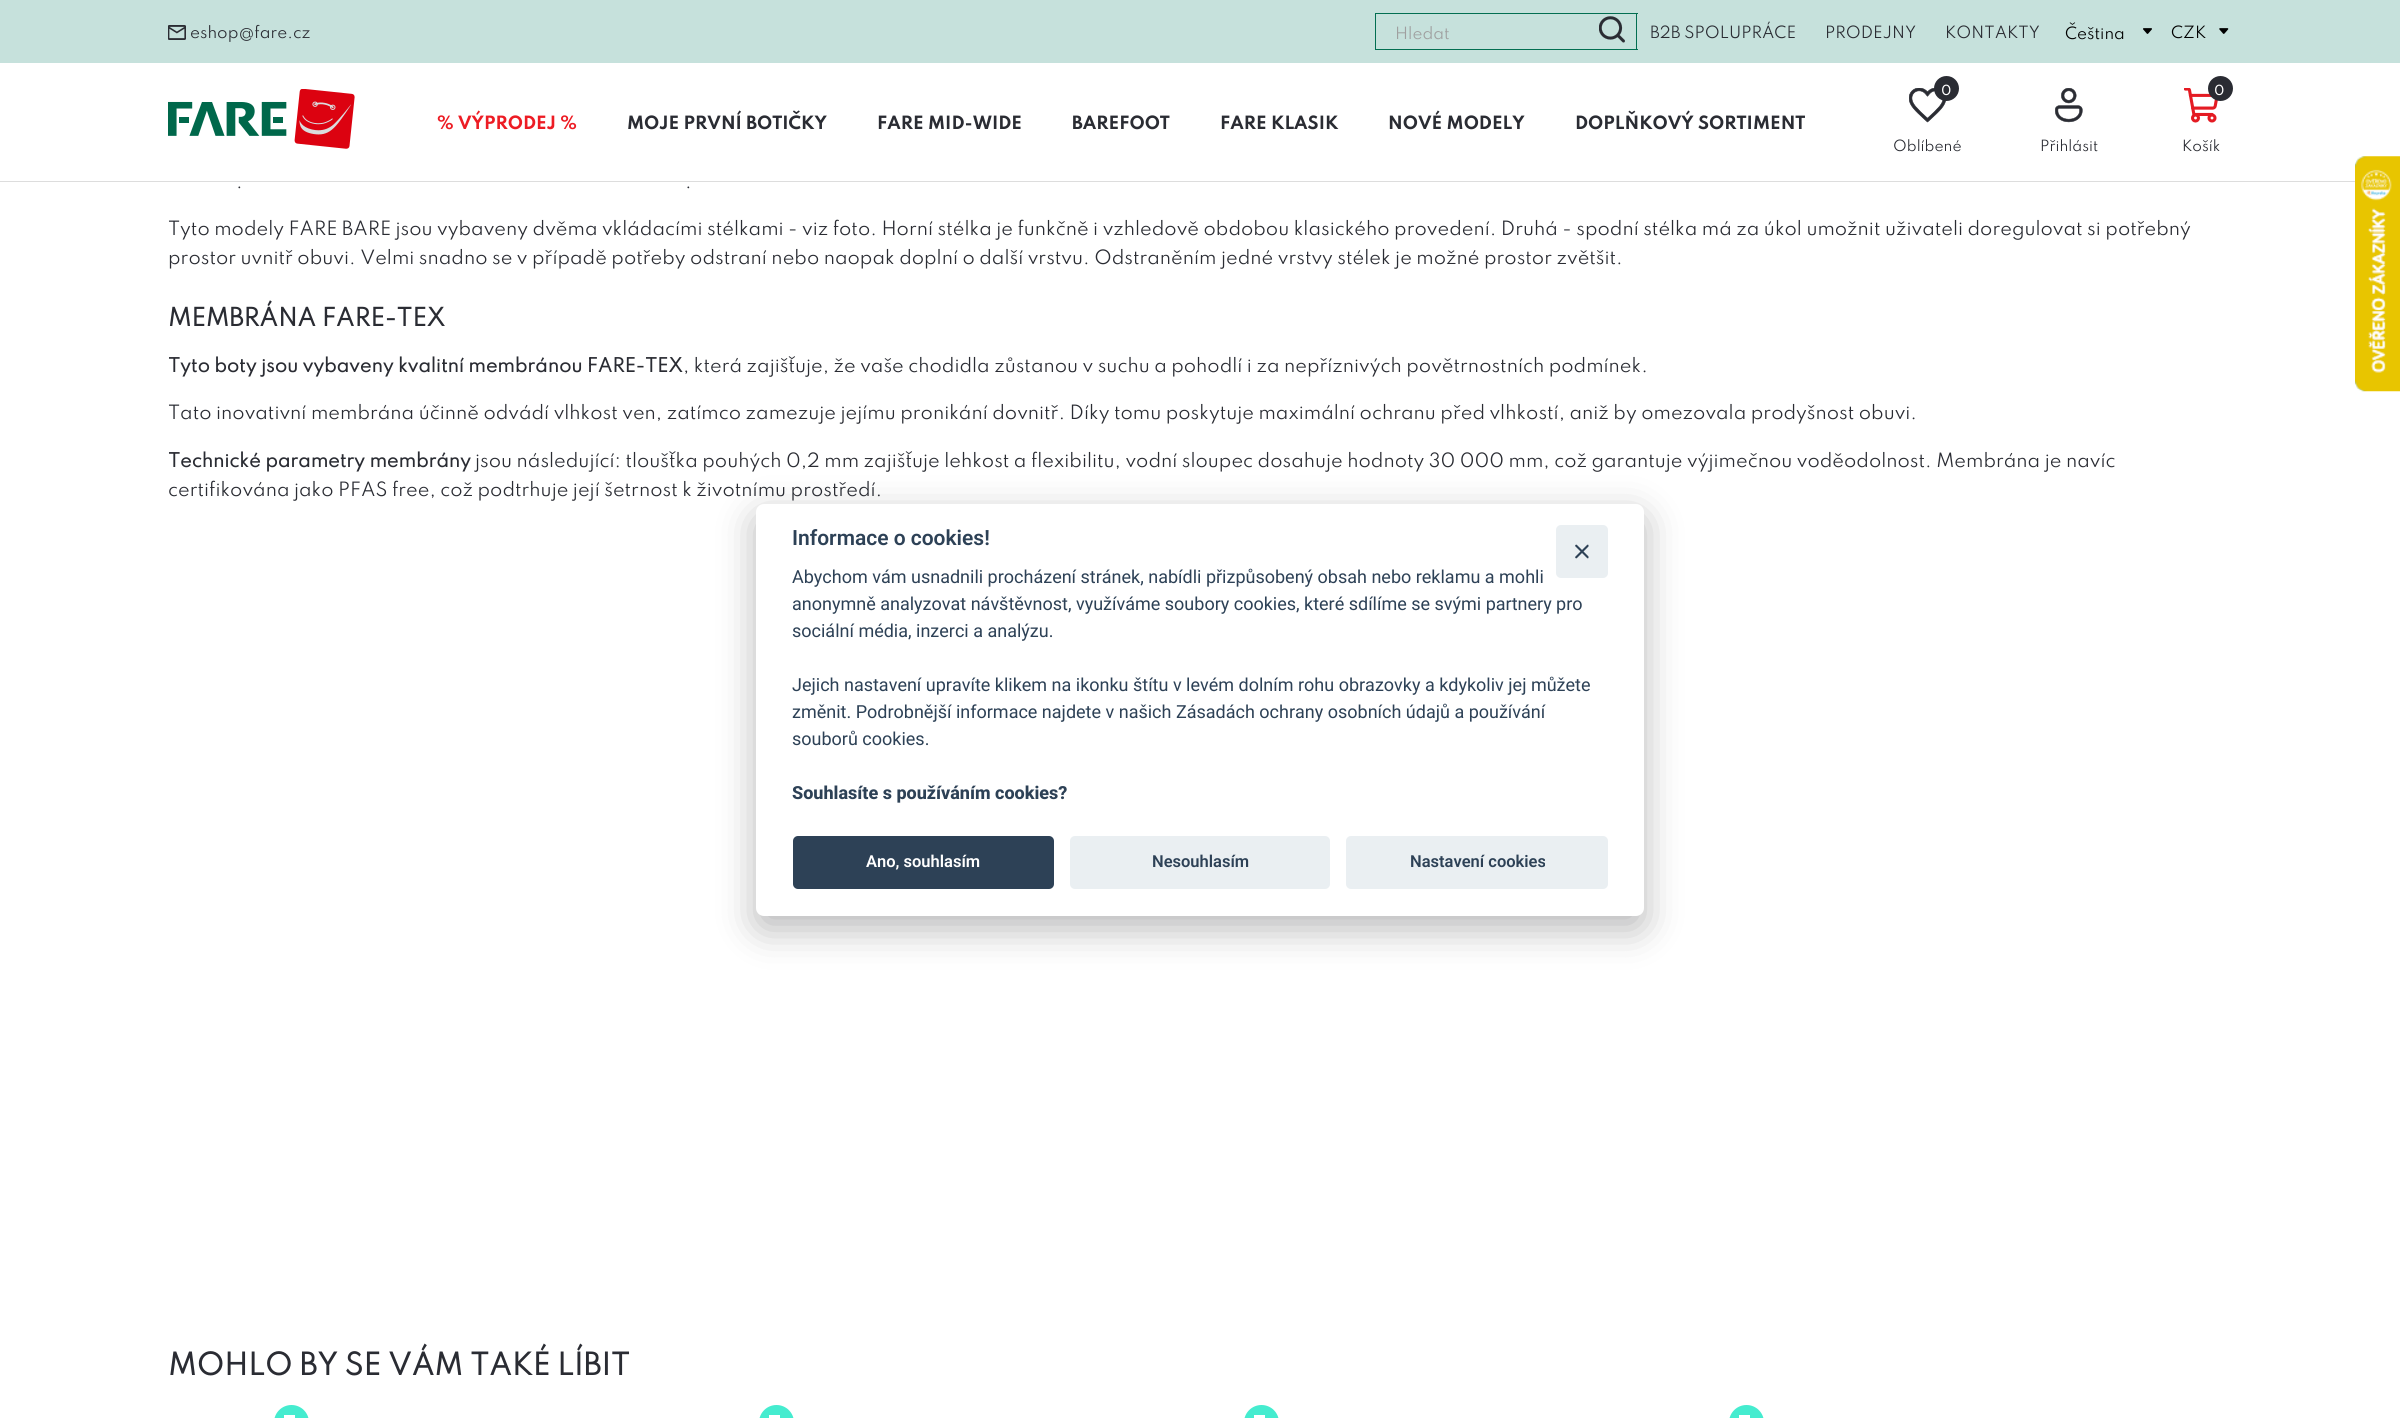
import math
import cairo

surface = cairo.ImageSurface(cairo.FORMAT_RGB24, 2400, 1418)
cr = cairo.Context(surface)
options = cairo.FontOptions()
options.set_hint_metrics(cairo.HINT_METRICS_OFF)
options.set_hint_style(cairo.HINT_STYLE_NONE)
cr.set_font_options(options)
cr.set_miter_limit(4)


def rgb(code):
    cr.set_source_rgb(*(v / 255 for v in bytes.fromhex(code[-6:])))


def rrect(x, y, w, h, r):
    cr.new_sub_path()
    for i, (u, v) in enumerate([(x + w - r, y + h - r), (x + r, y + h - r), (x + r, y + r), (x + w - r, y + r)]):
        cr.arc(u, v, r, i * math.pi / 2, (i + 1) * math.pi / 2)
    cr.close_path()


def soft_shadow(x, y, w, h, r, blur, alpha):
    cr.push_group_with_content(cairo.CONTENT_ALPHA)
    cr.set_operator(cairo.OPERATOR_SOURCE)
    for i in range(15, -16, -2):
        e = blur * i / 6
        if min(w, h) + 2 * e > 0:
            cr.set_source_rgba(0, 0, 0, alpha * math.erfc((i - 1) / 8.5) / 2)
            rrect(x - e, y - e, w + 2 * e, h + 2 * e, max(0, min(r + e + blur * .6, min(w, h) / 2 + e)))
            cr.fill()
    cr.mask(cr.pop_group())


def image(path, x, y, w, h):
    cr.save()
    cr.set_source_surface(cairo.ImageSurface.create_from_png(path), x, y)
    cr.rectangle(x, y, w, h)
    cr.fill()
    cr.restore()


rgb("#ffffff")
cr.paint()
rgb("#dddddd")
cr.rectangle(0, 181, 2355, 1)
cr.fill()
rgb("#c6e1dc")
cr.rectangle(0, 0, 2400, 63)
cr.fill()
image("img/1.png", 168, 25, 18, 15)
for x, y, w, h, color in [
    (1375, 13, 263, 1, "#026e51"),
    (1375, 49, 213, 1, "#026e51"),
    (1375, 13, 1, 37, "#026e51"),
    (1636, 13, 1, 37, "#026e51"),
    (1588, 49, 50, 1, "#026e51"),
]:
    rgb(color)
    cr.rectangle(x, y, w, h)
    cr.fill()
image("img/2.png", 1599, 16, 26, 27)
image("img/3.png", 2143, 28, 9, 6)
image("img/4.png", 2219, 28, 10, 6)
image("img/5.png", 168, 89, 187, 60)
image("img/6.png", 1909, 88, 37, 35)
rgb("#2a2c33")
cr.arc(1946.5, 88.5, 12.5, 0, 2 * math.pi)
cr.fill()
image("img/7.png", 2184, 88, 34, 35)
cr.arc(2220.5, 88.5, 12.5, 0, 2 * math.pi)
cr.fill()
image("img/8.png", 2055, 88, 28, 35)
image("img/9.png", 2355, 156, 45, 236)
rgb("#020203")
soft_shadow(756, 516, 888, 413, 8, 19, 0.28)
rgb("#ffffff")
rrect(756, 504, 888, 412, 8)
cr.fill()
rgb("#eaeff2")
rrect(1556, 525, 52, 53, 5)
cr.fill()
rgb("#2d4156")
cr.new_path()
cr.move_to(1588.5, 545)
cr.curve_to(1588.5, 545.5, 1588.5, 546, 1588.5, 546.5)
cr.line_to(1577, 558)
cr.curve_to(1576.5, 558.5, 1576, 558.5, 1575.5, 558)
cr.curve_to(1575, 557.5, 1575, 557, 1575.5, 556.5)
cr.line_to(1587, 545)
cr.curve_to(1587.5, 544.5, 1588, 544.5, 1588.5, 545)
cr.close_path()
cr.fill()
cr.new_path()
cr.move_to(1575.5, 545)
cr.curve_to(1576, 544.5, 1576.5, 544.5, 1577, 545)
cr.line_to(1588.5, 556.5)
cr.curve_to(1588.5, 557, 1588.5, 557.5, 1588.5, 558)
cr.curve_to(1588, 558.5, 1587.5, 558.5, 1587, 558)
cr.line_to(1575.5, 546.5)
cr.curve_to(1575, 546, 1575, 545.5, 1575.5, 545)
cr.close_path()
cr.fill()
rrect(793, 836, 261, 53, 5)
cr.fill()
rgb("#eaeff2")
rrect(1070, 836, 260, 53, 5)
cr.fill()
rrect(1346, 836, 262, 53, 5)
cr.fill()
rgb("#45eccf")
rrect(274, 1405, 35, 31, 17.5)
cr.fill()
rgb("#ffffff")
cr.rectangle(284, 1415, 11, 3)
cr.fill()
rgb("#45eccf")
rrect(759, 1405, 35, 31, 17.5)
cr.fill()
rgb("#ffffff")
cr.rectangle(769, 1415, 11, 3)
cr.fill()
rgb("#45eccf")
rrect(1244, 1405, 35, 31, 17.5)
cr.fill()
rgb("#ffffff")
cr.rectangle(1254, 1415, 11, 3)
cr.fill()
rgb("#45eccf")
rrect(1729, 1405, 35, 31, 17.5)
cr.fill()
rgb("#ffffff")
cr.rectangle(1739, 1415, 11, 3)
cr.fill()
cr.select_font_face("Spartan")
cr.set_font_size(15)
rgb("#2a2c33")
cr.move_to(190, 38)
cr.show_text("eshop@fare.cz")
rgb("#9f9f9f")
cr.move_to(1395, 39)
cr.show_text("Hledat")
rgb("#2a2c33")
for x, y, s in [
    (1650, 38, "B2B SPOLUPRÁCE"),
    (1825, 38, "PRODEJNY"),
    (1945, 38, "KONTAKTY"),
]:
    cr.move_to(x, y)
    cr.show_text(s)
rgb("#000000")
cr.move_to(2065, 39)
cr.show_text("Čeština")
cr.move_to(2171, 38)
cr.show_text("CZK")
cr.select_font_face("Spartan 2", cairo.FONT_SLANT_NORMAL, cairo.FONT_WEIGHT_BOLD)
cr.set_font_size(16.25)
rgb("#ed1c24")
cr.move_to(437, 129)
cr.show_text("% VÝPRODEJ %")
rgb("#2a2c33")
for x, y, s in [
    (627, 129, "MOJE PRVNÍ BOTIČKY"),
    (877, 129, "FARE MID-WIDE"),
    (1072, 129, "BAREFOOT"),
    (1220, 129, "FARE KLASIK"),
    (1388, 129, "NOVÉ MODELY"),
    (1575, 129, "DOPLŇKOVÝ SORTIMENT"),
]:
    cr.move_to(x, y)
    cr.show_text(s)
cr.select_font_face("Spartan", cairo.FONT_SLANT_NORMAL, cairo.FONT_WEIGHT_BOLD)
cr.set_font_size(12)
rgb("#ffffff")
cr.move_to(1941, 95)
cr.show_text("0")
cr.select_font_face("Spartan")
cr.set_font_size(13.75)
rgb("#2a2c33")
cr.move_to(1893, 151)
cr.show_text("Oblíbené")
cr.select_font_face("Spartan", cairo.FONT_SLANT_NORMAL, cairo.FONT_WEIGHT_BOLD)
cr.set_font_size(12)
rgb("#ffffff")
cr.move_to(2214, 95)
cr.show_text("0")
cr.select_font_face("Spartan")
cr.set_font_size(13.75)
rgb("#2a2c33")
cr.move_to(2182, 151)
cr.show_text("Košík")
cr.move_to(2040, 151)
cr.show_text("Přihlásit")
cr.set_font_size(17.5)
for x, y, s in [
    (236, 188, "."),
    (685, 188, "."),
    (168, 235, "Tyto modely FARE BARE jsou vybaveny dvěma vkládacími stélkami - viz foto. Horní stélka je funkčně i vzhledově obdobou klasického provedení. Druhá - spodní stélka má za úkol umožnit uživateli doregulovat si potřebný"),
    (168, 264, "prostor uvnitř obuvi. Velmi snadno se v případě potřeby odstraní nebo naopak doplní o další vrstvu. Odstraněním jedné vrstvy stélek je možné prostor zvětšit."),
]:
    cr.move_to(x, y)
    cr.show_text(s)
cr.select_font_face("Spartan", cairo.FONT_SLANT_NORMAL, cairo.FONT_WEIGHT_BOLD)
cr.set_font_size(22.5)
cr.move_to(168, 326)
cr.show_text("MEMBRÁNA FARE-TEX")
cr.set_font_size(17.5)
cr.move_to(168, 372)
cr.show_text("Tyto boty jsou vybaveny kvalitní membránou FARE-TEX")
cr.select_font_face("Spartan")
cr.move_to(683, 372)
cr.show_text(", která zajišťuje, že vaše chodidla zůstanou v suchu a pohodlí i za nepříznivých povětrnostních podmínek.")
cr.move_to(168, 419)
cr.show_text("Tato inovativní membrána účinně odvádí vlhkost ven, zatímco zamezuje jejímu pronikání dovnitř. Díky tomu poskytuje maximální ochranu před vlhkostí, aniž by omezovala prodyšnost obuvi.")
cr.select_font_face("Spartan", cairo.FONT_SLANT_NORMAL, cairo.FONT_WEIGHT_BOLD)
cr.move_to(168, 467)
cr.show_text("Technické parametry membrány")
cr.select_font_face("Spartan")
cr.move_to(475, 467)
cr.show_text("jsou následující: tloušťka pouhých 0,2 mm zajišťuje lehkost a flexibilitu, vodní sloupec dosahuje hodnoty 30 000 mm, což garantuje výjimečnou voděodolnost. Membrána je navíc")
cr.move_to(168, 496)
cr.show_text("certifikována jako PFAS free, což podtrhuje její šetrnost k životnímu prostředí.")
cr.select_font_face("Roboto SemiBold")
cr.set_font_size(21)
rgb("#2d4156")
cr.move_to(792, 545)
cr.show_text("Informace o cookies!")
cr.select_font_face("Roboto")
cr.set_font_size(18)
for x, y, s in [
    (792, 583, "Abychom vám usnadnili procházení stránek, nabídli přizpůsobený obsah nebo reklamu a mohli"),
    (792, 610, "anonymně analyzovat návštěvnost, využíváme soubory cookies, které sdílíme se svými partnery pro"),
    (792, 637, "sociální média, inzerci a analýzu."),
    (792, 691, "Jejich nastavení upravíte klikem na ikonku štítu v levém dolním rohu obrazovky a kdykoliv jej můžete"),
    (792, 718, "změnit. Podrobnější informace najdete v našich Zásadách ochrany osobních údajů a používání"),
    (792, 745, "souborů cookies."),
]:
    cr.move_to(x, y)
    cr.show_text(s)
cr.select_font_face("Roboto ExtraBold")
cr.move_to(792, 799)
cr.show_text("Souhlasíte s používáním cookies?")
cr.select_font_face("Roboto SemiBold")
cr.set_font_size(16.5)
rgb("#ffffff")
cr.move_to(866, 867)
cr.show_text("Ano, souhlasím")
rgb("#2d4156")
cr.move_to(1152, 867)
cr.show_text("Nesouhlasím")
cr.move_to(1410, 867)
cr.show_text("Nastavení cookies")
cr.select_font_face("Spartan", cairo.FONT_SLANT_NORMAL, cairo.FONT_WEIGHT_BOLD)
cr.set_font_size(27.5)
rgb("#2a2c33")
cr.move_to(168, 1375)
cr.show_text("MOHLO BY SE VÁM TAKÉ LÍBIT")
surface.write_to_png("page.png")
